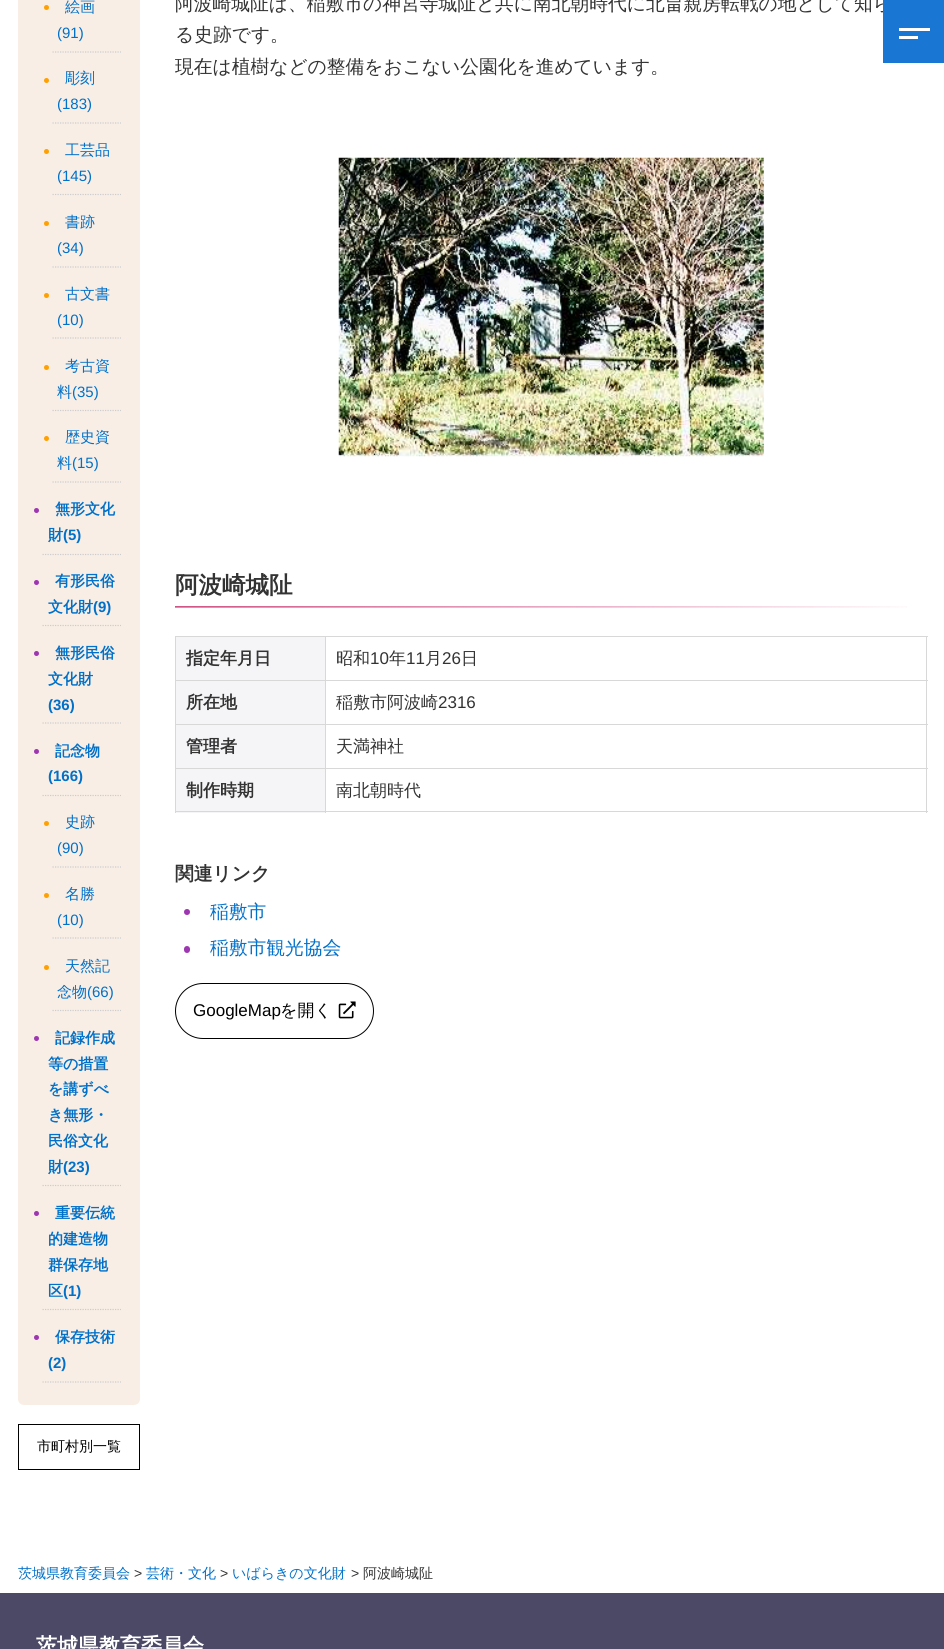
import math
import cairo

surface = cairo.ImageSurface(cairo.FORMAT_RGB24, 944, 1649)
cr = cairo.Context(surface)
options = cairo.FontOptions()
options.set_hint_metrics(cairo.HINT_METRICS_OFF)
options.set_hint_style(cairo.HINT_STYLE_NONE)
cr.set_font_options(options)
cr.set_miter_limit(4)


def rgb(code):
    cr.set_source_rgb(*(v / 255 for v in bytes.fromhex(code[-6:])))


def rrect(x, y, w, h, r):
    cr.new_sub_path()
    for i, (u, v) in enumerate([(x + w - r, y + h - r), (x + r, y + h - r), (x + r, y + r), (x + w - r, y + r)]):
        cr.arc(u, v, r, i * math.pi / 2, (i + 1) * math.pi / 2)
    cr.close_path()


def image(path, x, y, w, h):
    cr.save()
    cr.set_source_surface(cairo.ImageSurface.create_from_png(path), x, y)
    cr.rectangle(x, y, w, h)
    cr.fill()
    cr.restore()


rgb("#ffffff")
cr.paint()
rgb("#f8eee5")
rrect(18, -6, 122, 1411, 6)
cr.fill()
cr.new_path()
cr.move_to(52.5, 52)
cr.line_to(121, 52)
rgb("#cccccc")
cr.set_line_width(1.2)
cr.set_dash([1.25, 1.25])
cr.stroke()
rgb("#ffa000")
cr.arc(46.5, 7.5, 2.5, 0, 2 * math.pi)
cr.fill()
cr.new_path()
cr.move_to(52.5, 123)
cr.line_to(121, 123)
rgb("#cccccc")
cr.stroke()
rgb("#ffa000")
cr.arc(46.5, 80.5, 2.5, 0, 2 * math.pi)
cr.fill()
cr.new_path()
cr.move_to(52.5, 194.5)
cr.line_to(121, 194.5)
rgb("#cccccc")
cr.stroke()
rgb("#ffa000")
cr.arc(46.5, 151.5, 2.5, 0, 2 * math.pi)
cr.fill()
cr.new_path()
cr.move_to(52.5, 267)
cr.line_to(121, 267)
rgb("#cccccc")
cr.stroke()
rgb("#ffa000")
cr.arc(46.5, 223.5, 2.5, 0, 2 * math.pi)
cr.fill()
cr.new_path()
cr.move_to(52.5, 338)
cr.line_to(121, 338)
rgb("#cccccc")
cr.stroke()
rgb("#ffa000")
cr.arc(46.5, 295.5, 2.5, 0, 2 * math.pi)
cr.fill()
cr.new_path()
cr.move_to(52.5, 410.5)
cr.line_to(121, 410.5)
rgb("#cccccc")
cr.stroke()
rgb("#ffa000")
cr.arc(46.5, 367.5, 2.5, 0, 2 * math.pi)
cr.fill()
cr.new_path()
cr.move_to(52.5, 482)
cr.line_to(121, 482)
rgb("#cccccc")
cr.stroke()
rgb("#ffa000")
cr.arc(46.5, 438.5, 2.5, 0, 2 * math.pi)
cr.fill()
cr.new_path()
cr.move_to(42.5, 554.5)
cr.line_to(121, 554.5)
rgb("#cccccc")
cr.stroke()
rgb("#9e35b1")
cr.arc(36.5, 510.5, 2.5, 0, 2 * math.pi)
cr.fill()
cr.new_path()
cr.move_to(42.5, 625.5)
cr.line_to(121, 625.5)
rgb("#cccccc")
cr.stroke()
rgb("#9e35b1")
cr.arc(36.5, 582.5, 2.5, 0, 2 * math.pi)
cr.fill()
cr.new_path()
cr.move_to(42.5, 723)
cr.line_to(121, 723)
rgb("#cccccc")
cr.stroke()
rgb("#9e35b1")
cr.arc(36.5, 653.5, 2.5, 0, 2 * math.pi)
cr.fill()
cr.new_path()
cr.move_to(42.5, 795.5)
cr.line_to(121, 795.5)
rgb("#cccccc")
cr.stroke()
rgb("#9e35b1")
cr.arc(36.5, 751.5, 2.5, 0, 2 * math.pi)
cr.fill()
cr.new_path()
cr.move_to(52.5, 867)
cr.line_to(121, 867)
rgb("#cccccc")
cr.stroke()
rgb("#ffa000")
cr.arc(46.5, 823.5, 2.5, 0, 2 * math.pi)
cr.fill()
cr.new_path()
cr.move_to(52.5, 938)
cr.line_to(121, 938)
rgb("#cccccc")
cr.stroke()
rgb("#ffa000")
cr.arc(46.5, 895.5, 2.5, 0, 2 * math.pi)
cr.fill()
cr.new_path()
cr.move_to(52.5, 1010.5)
cr.line_to(121, 1010.5)
rgb("#cccccc")
cr.stroke()
rgb("#ffa000")
cr.arc(46.5, 967.5, 2.5, 0, 2 * math.pi)
cr.fill()
cr.new_path()
cr.move_to(42.5, 1185.5)
cr.line_to(121, 1185.5)
rgb("#cccccc")
cr.stroke()
rgb("#9e35b1")
cr.arc(36.5, 1038.5, 2.5, 0, 2 * math.pi)
cr.fill()
cr.new_path()
cr.move_to(42.5, 1309.5)
cr.line_to(121, 1309.5)
rgb("#cccccc")
cr.stroke()
rgb("#9e35b1")
cr.arc(36.5, 1213.5, 2.5, 0, 2 * math.pi)
cr.fill()
cr.new_path()
cr.move_to(42.5, 1382)
cr.line_to(121, 1382)
rgb("#cccccc")
cr.stroke()
rgb("#9e35b1")
cr.arc(36.5, 1337.5, 2.5, 0, 2 * math.pi)
cr.fill()
cr.rectangle(18.5, 1424.5, 121, 45)
rgb("#000000")
cr.set_line_width(1)
cr.set_dash([])
cr.stroke()
image("img/1.png", 338, 157, 426, 300)
image("img/2.png", 175, 606, 732, 2)
for x, y, w, h, color in [
    (176, 637, 149, 43, "#f5f5f7"),
    (325, 636, 603, 1, "#d8d8d8"),
    (325, 680, 603, 1, "#d8d8d8"),
    (325, 724, 603, 1, "#d8d8d8"),
    (325, 768, 603, 1, "#d8d8d8"),
    (926, 768, 1, 45, "#d8d8d8"),
    (325, 811, 603, 1, "#d8d8d8"),
    (325, 768, 1, 45, "#d8d8d8"),
    (175, 768, 151, 1, "#d8d8d8"),
    (325, 724, 1, 45, "#d8d8d8"),
    (175, 724, 151, 1, "#d8d8d8"),
    (325, 680, 1, 45, "#d8d8d8"),
    (175, 680, 151, 1, "#d8d8d8"),
    (325, 636, 1, 45, "#d8d8d8"),
    (175, 636, 151, 1, "#d8d8d8"),
    (176, 769, 149, 44, "#f5f5f7"),
    (175, 811, 151, 1, "#d8d8d8"),
    (175, 768, 1, 45, "#d8d8d8"),
    (175, 724, 1, 45, "#d8d8d8"),
    (175, 680, 1, 45, "#d8d8d8"),
    (175, 636, 1, 45, "#d8d8d8"),
    (926, 724, 1, 45, "#d8d8d8"),
    (926, 680, 1, 45, "#d8d8d8"),
    (926, 636, 1, 45, "#d8d8d8"),
    (176, 681, 149, 43, "#f5f5f7"),
    (176, 725, 149, 43, "#f5f5f7"),
]:
    rgb(color)
    cr.rectangle(x, y, w, h)
    cr.fill()
rgb("#9e35b1")
cr.arc(187, 912, 3, 0, 2 * math.pi)
cr.fill()
rrect(184, 946, 6, 7, 3)
cr.fill()
rrect(175.5, 983.5, 198, 55, 27.5)
rgb("#000000")
cr.stroke()
image("img/3.png", 338, 1001, 18, 18)
rgb("#4c4966")
cr.rectangle(0, 1593, 944, 56)
cr.fill()
cr.select_font_face("WenQuanYi Zen Hei Medium")
cr.set_font_size(15)
rgb("#0070c9")
cr.move_to(65, 12)
cr.show_text("絵画")
cr.select_font_face("Liberation Sans")
cr.move_to(57, 38)
cr.show_text("(91)")
cr.select_font_face("WenQuanYi Zen Hei Medium")
cr.move_to(65, 83)
cr.show_text("彫刻")
cr.select_font_face("Liberation Sans")
cr.move_to(57, 109)
cr.show_text("(183)")
cr.select_font_face("WenQuanYi Zen Hei Medium")
cr.move_to(65, 155)
cr.show_text("工芸品")
cr.select_font_face("Liberation Sans")
cr.move_to(57, 181)
cr.show_text("(145)")
cr.select_font_face("WenQuanYi Zen Hei Medium")
cr.move_to(65, 227)
cr.show_text("書跡")
cr.select_font_face("Liberation Sans")
cr.move_to(57, 253)
cr.show_text("(34)")
cr.select_font_face("WenQuanYi Zen Hei Medium")
cr.move_to(65, 299)
cr.show_text("古文書")
cr.select_font_face("Liberation Sans")
cr.move_to(57, 325)
cr.show_text("(10)")
cr.select_font_face("WenQuanYi Zen Hei Medium")
cr.move_to(65, 371)
cr.show_text("考古資")
cr.move_to(57, 397)
cr.show_text("料")
cr.select_font_face("Liberation Sans")
cr.move_to(72, 397)
cr.show_text("(35)")
cr.select_font_face("WenQuanYi Zen Hei Medium")
cr.move_to(65, 442)
cr.show_text("歴史資")
cr.move_to(57, 468)
cr.show_text("料")
cr.select_font_face("Liberation Sans")
cr.move_to(72, 468)
cr.show_text("(15)")
cr.select_font_face("WenQuanYi Zen Hei", cairo.FONT_SLANT_NORMAL, cairo.FONT_WEIGHT_BOLD)
cr.move_to(55, 514)
cr.show_text("無形文化")
cr.move_to(48, 540)
cr.show_text("財")
cr.select_font_face("Liberation Sans", cairo.FONT_SLANT_NORMAL, cairo.FONT_WEIGHT_BOLD)
cr.move_to(63, 540)
cr.show_text("(5)")
cr.select_font_face("WenQuanYi Zen Hei", cairo.FONT_SLANT_NORMAL, cairo.FONT_WEIGHT_BOLD)
cr.move_to(55, 586)
cr.show_text("有形民俗")
cr.move_to(48, 612)
cr.show_text("文化財")
cr.select_font_face("Liberation Sans", cairo.FONT_SLANT_NORMAL, cairo.FONT_WEIGHT_BOLD)
cr.move_to(93, 612)
cr.show_text("(9)")
cr.select_font_face("WenQuanYi Zen Hei", cairo.FONT_SLANT_NORMAL, cairo.FONT_WEIGHT_BOLD)
cr.move_to(55, 658)
cr.show_text("無形民俗")
cr.move_to(48, 684)
cr.show_text("文化財")
cr.select_font_face("Liberation Sans", cairo.FONT_SLANT_NORMAL, cairo.FONT_WEIGHT_BOLD)
cr.move_to(48, 710)
cr.show_text("(36)")
cr.select_font_face("WenQuanYi Zen Hei", cairo.FONT_SLANT_NORMAL, cairo.FONT_WEIGHT_BOLD)
cr.move_to(55, 756)
cr.show_text("記念物")
cr.select_font_face("Liberation Sans", cairo.FONT_SLANT_NORMAL, cairo.FONT_WEIGHT_BOLD)
cr.move_to(48, 781)
cr.show_text("(166)")
cr.select_font_face("WenQuanYi Zen Hei Medium")
cr.move_to(65, 827)
cr.show_text("史跡")
cr.select_font_face("Liberation Sans")
cr.move_to(57, 853)
cr.show_text("(90)")
cr.select_font_face("WenQuanYi Zen Hei Medium")
cr.move_to(65, 899)
cr.show_text("名勝")
cr.select_font_face("Liberation Sans")
cr.move_to(57, 925)
cr.show_text("(10)")
cr.select_font_face("WenQuanYi Zen Hei Medium")
cr.move_to(65, 971)
cr.show_text("天然記")
cr.move_to(57, 997)
cr.show_text("念物")
cr.select_font_face("Liberation Sans")
cr.move_to(87, 997)
cr.show_text("(66)")
cr.select_font_face("WenQuanYi Zen Hei", cairo.FONT_SLANT_NORMAL, cairo.FONT_WEIGHT_BOLD)
for x, y, s in [
    (55, 1043, "記録作成"),
    (48, 1069, "等の措置"),
    (48, 1094, "を講ずべ"),
    (48, 1120, "き無形・"),
    (48, 1146, "民俗文化"),
    (48, 1172, "財"),
]:
    cr.move_to(x, y)
    cr.show_text(s)
cr.select_font_face("Liberation Sans", cairo.FONT_SLANT_NORMAL, cairo.FONT_WEIGHT_BOLD)
cr.move_to(63, 1172)
cr.show_text("(23)")
cr.select_font_face("WenQuanYi Zen Hei", cairo.FONT_SLANT_NORMAL, cairo.FONT_WEIGHT_BOLD)
for x, y, s in [
    (55, 1218, "重要伝統"),
    (48, 1244, "的建造物"),
    (48, 1270, "群保存地"),
    (48, 1296, "区"),
]:
    cr.move_to(x, y)
    cr.show_text(s)
cr.select_font_face("Liberation Sans", cairo.FONT_SLANT_NORMAL, cairo.FONT_WEIGHT_BOLD)
cr.move_to(63, 1296)
cr.show_text("(1)")
cr.select_font_face("WenQuanYi Zen Hei", cairo.FONT_SLANT_NORMAL, cairo.FONT_WEIGHT_BOLD)
cr.move_to(55, 1342)
cr.show_text("保存技術")
cr.select_font_face("Liberation Sans", cairo.FONT_SLANT_NORMAL, cairo.FONT_WEIGHT_BOLD)
cr.move_to(48, 1368)
cr.show_text("(2)")
cr.select_font_face("WenQuanYi Zen Hei Medium")
cr.set_font_size(14)
rgb("#000000")
cr.move_to(37, 1451)
cr.show_text("市町村別一覧")
cr.set_font_size(18.75)
rgb("#333333")
for x, y, s in [
    (175, 10, "阿波崎城阯は、稲敷市の神宮寺城阯と共に南北朝時代に北畠親房転戦の地として知ら"),
    (175, 41, "る史跡です。"),
    (175, 73, "現在は植樹などの整備をおこない公園化を進めています。"),
]:
    cr.move_to(x, y)
    cr.show_text(s)
cr.select_font_face("WenQuanYi Zen Hei", cairo.FONT_SLANT_NORMAL, cairo.FONT_WEIGHT_BOLD)
cr.set_font_size(23.5)
cr.move_to(175, 593)
cr.show_text("阿波崎城阯")
cr.set_font_size(17)
cr.move_to(186, 664)
cr.show_text("指定年月日")
cr.select_font_face("WenQuanYi Zen Hei Medium")
cr.move_to(336, 664)
cr.show_text("昭和")
cr.select_font_face("Liberation Sans")
cr.move_to(370, 664)
cr.show_text("10")
cr.select_font_face("WenQuanYi Zen Hei Medium")
cr.move_to(389, 664)
cr.show_text("年")
cr.select_font_face("Liberation Sans")
cr.move_to(406, 664)
cr.show_text("11")
cr.select_font_face("WenQuanYi Zen Hei Medium")
cr.move_to(425, 664)
cr.show_text("月")
cr.select_font_face("Liberation Sans")
cr.move_to(442, 664)
cr.show_text("26")
cr.select_font_face("WenQuanYi Zen Hei Medium")
cr.move_to(461, 664)
cr.show_text("日")
cr.select_font_face("WenQuanYi Zen Hei", cairo.FONT_SLANT_NORMAL, cairo.FONT_WEIGHT_BOLD)
cr.move_to(186, 708)
cr.show_text("所在地")
cr.select_font_face("WenQuanYi Zen Hei Medium")
cr.move_to(336, 708)
cr.show_text("稲敷市阿波崎")
cr.select_font_face("Liberation Sans")
cr.move_to(438, 708)
cr.show_text("2316")
cr.select_font_face("WenQuanYi Zen Hei", cairo.FONT_SLANT_NORMAL, cairo.FONT_WEIGHT_BOLD)
cr.move_to(186, 752)
cr.show_text("管理者")
cr.select_font_face("WenQuanYi Zen Hei Medium")
cr.move_to(336, 752)
cr.show_text("天満神社")
cr.select_font_face("WenQuanYi Zen Hei", cairo.FONT_SLANT_NORMAL, cairo.FONT_WEIGHT_BOLD)
cr.move_to(186, 796)
cr.show_text("制作時期")
cr.select_font_face("WenQuanYi Zen Hei Medium")
cr.move_to(336, 796)
cr.show_text("南北朝時代")
cr.select_font_face("WenQuanYi Zen Hei", cairo.FONT_SLANT_NORMAL, cairo.FONT_WEIGHT_BOLD)
cr.set_font_size(18.75)
cr.move_to(175, 880)
cr.show_text("関連リンク")
cr.select_font_face("WenQuanYi Zen Hei Medium")
rgb("#0070c9")
cr.move_to(210, 918)
cr.show_text("稲敷市")
cr.move_to(210, 954)
cr.show_text("稲敷市観光協会")
cr.select_font_face("Liberation Sans")
cr.set_font_size(17)
rgb("#000000")
cr.move_to(193, 1016)
cr.show_text("GoogleMap")
cr.select_font_face("WenQuanYi Zen Hei Medium")
cr.move_to(280, 1016)
cr.show_text("を開く")
cr.set_font_size(14)
rgb("#0070c9")
cr.move_to(18, 1578)
cr.show_text("茨城県教育委員会")
cr.select_font_face("Liberation Sans")
rgb("#333333")
cr.move_to(134, 1578)
cr.show_text(">")
cr.select_font_face("WenQuanYi Zen Hei Medium")
rgb("#0070c9")
cr.move_to(146, 1578)
cr.show_text("芸術・文化")
cr.select_font_face("Liberation Sans")
rgb("#333333")
cr.move_to(220, 1578)
cr.show_text(">")
cr.select_font_face("WenQuanYi Zen Hei Medium")
rgb("#0070c9")
cr.move_to(232, 1578)
cr.show_text("いばらきの文化財")
cr.select_font_face("Liberation Sans")
rgb("#333333")
cr.move_to(351, 1578)
cr.show_text(">")
cr.select_font_face("WenQuanYi Zen Hei Medium")
cr.move_to(363, 1578)
cr.show_text("阿波崎城阯")
for x, y, w, h, color in [
    (883, 0, 61, 63, "#1976d2"),
    (899, 28, 31, 3, "#ffffff"),
    (899, 36, 19, 3, "#ffffff"),
]:
    rgb(color)
    cr.rectangle(x, y, w, h)
    cr.fill()
cr.select_font_face("WenQuanYi Zen Hei", cairo.FONT_SLANT_NORMAL, cairo.FONT_WEIGHT_BOLD)
cr.set_font_size(21)
cr.move_to(36, 1653)
cr.show_text("茨城県教育委員会")
surface.write_to_png("page.png")
